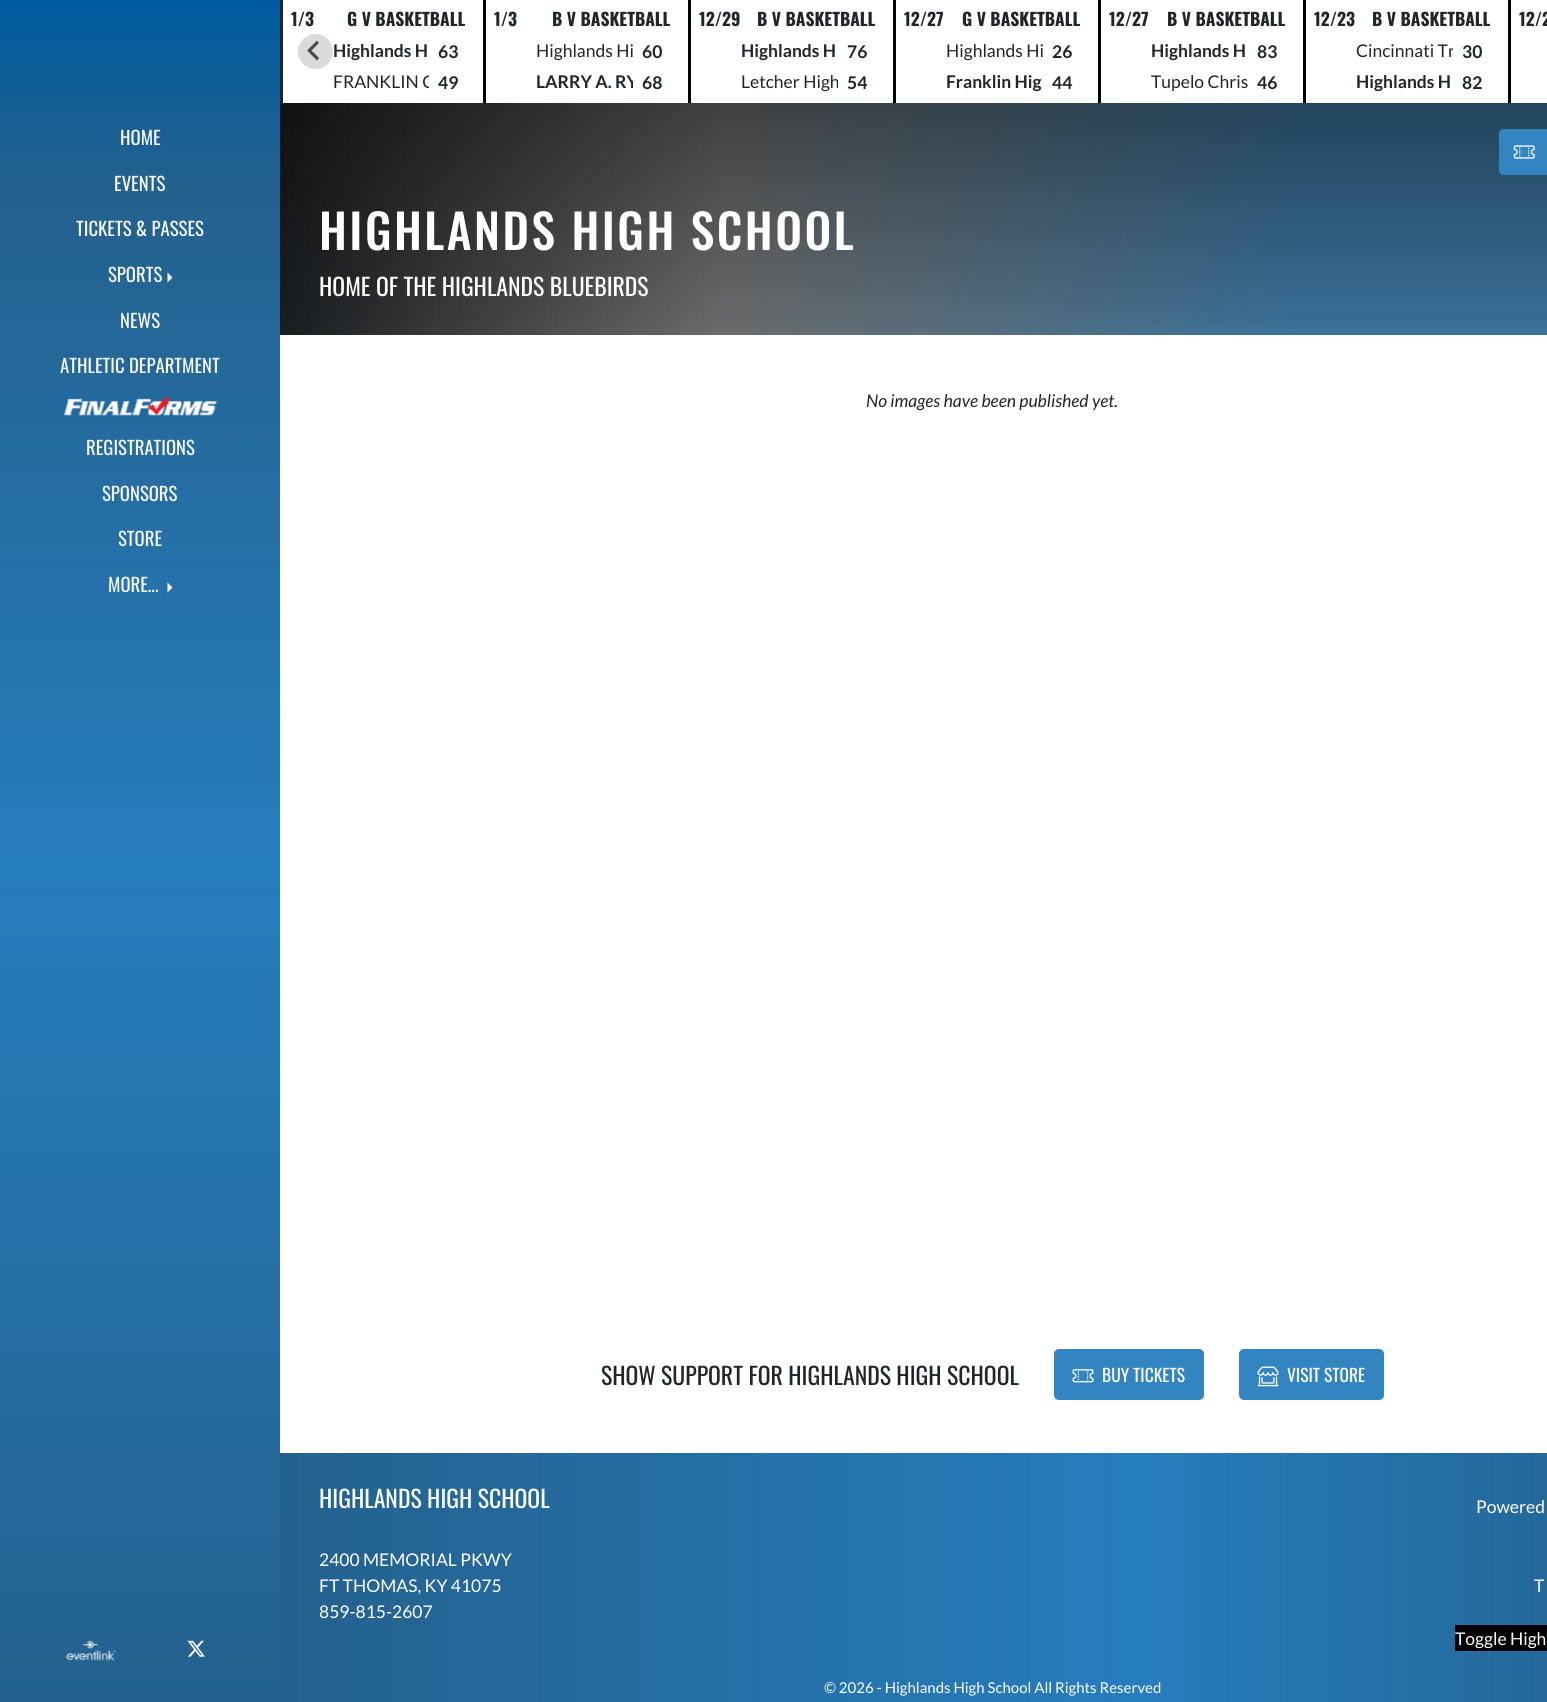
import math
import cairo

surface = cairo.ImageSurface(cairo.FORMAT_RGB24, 1547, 1702)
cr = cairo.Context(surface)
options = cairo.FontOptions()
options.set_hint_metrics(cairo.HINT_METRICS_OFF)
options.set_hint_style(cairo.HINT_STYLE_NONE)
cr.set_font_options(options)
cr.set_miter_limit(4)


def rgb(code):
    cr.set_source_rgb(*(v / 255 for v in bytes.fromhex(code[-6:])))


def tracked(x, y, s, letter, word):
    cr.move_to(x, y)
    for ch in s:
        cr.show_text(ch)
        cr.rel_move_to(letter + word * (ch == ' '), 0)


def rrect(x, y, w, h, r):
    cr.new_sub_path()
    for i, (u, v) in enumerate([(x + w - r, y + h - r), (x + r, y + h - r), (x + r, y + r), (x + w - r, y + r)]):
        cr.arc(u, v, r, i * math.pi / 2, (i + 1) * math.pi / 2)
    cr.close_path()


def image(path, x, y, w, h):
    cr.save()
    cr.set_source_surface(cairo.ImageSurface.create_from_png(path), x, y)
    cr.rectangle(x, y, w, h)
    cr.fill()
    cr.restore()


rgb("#ffffff")
cr.paint()
gradient = cairo.LinearGradient(140, 0, 140, 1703)
gradient.add_color_stop_rgba(0, 0, 0.361, 0.627, 1)
gradient.add_color_stop_rgba(0.11, 0.141, 0.38, 0.557, 1)
gradient.add_color_stop_rgba(0.51, 0.149, 0.49, 0.741, 1)
gradient.add_color_stop_rgba(1, 0.141, 0.38, 0.557, 1)
cr.set_source(gradient)
cr.rectangle(0, 0, 280, 1702)
cr.fill()
rgb("#f8f9fa")
cr.new_path()
cr.move_to(167.5, 282.5)
cr.line_to(167.5, 272.5)
cr.line_to(172.5, 277.5)
cr.close_path()
cr.fill()
image("img/1.png", 63, 396, 154, 20)
cr.new_path()
cr.move_to(167.5, 592.5)
cr.line_to(167.5, 582.5)
cr.line_to(172.5, 587.5)
cr.close_path()
cr.fill()
image("img/2.png", 66, 1641, 50, 20)
image("img/3.png", 187, 1640, 18, 17)
for x, y, w, h, color in [
    (483, 0, 3, 103, "#000000"),
    (280, 0, 3, 103, "#212529"),
    (688, 0, 3, 103, "#000000"),
    (893, 0, 3, 103, "#000000"),
    (1098, 0, 3, 103, "#000000"),
    (1303, 0, 3, 103, "#000000"),
    (1508, 0, 3, 103, "#000000"),
]:
    rgb(color)
    cr.rectangle(x, y, w, h)
    cr.fill()
rgb("#dbdbdb")
cr.arc(315.5, 51.5, 17.5, 0, 2 * math.pi)
cr.fill()
rgb("#4d4d4d")
cr.new_path()
cr.move_to(317, 40.5)
cr.line_to(319, 43)
cr.line_to(311.5, 50.5)
cr.line_to(319, 58)
cr.line_to(317, 60.5)
cr.line_to(307, 50.5)
cr.close_path()
cr.fill()
gradient = cairo.LinearGradient(280, 219, 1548, 219)
gradient.add_color_stop_rgba(0, 0.102, 0.114, 0.125, 1)
gradient.add_color_stop_rgba(0.35, 0.424, 0.424, 0.424, 1)
gradient.add_color_stop_rgba(0.8, 0.227, 0.443, 0.6, 1)
cr.set_source(gradient)
cr.rectangle(280, 103, 1267, 232)
cr.fill()
gradient = cairo.LinearGradient(993, 102, 993, 339)
gradient.add_color_stop_rgba(0, 0, 0, 0, 0.4)
gradient.add_color_stop_rgba(1, 0, 0, 0, 0)
cr.set_source(gradient)
cr.rectangle(280, 103, 1267, 223)
cr.fill()
rgb("#3385c1")
cr.new_path()
cr.move_to(1504, 129)
cr.line_to(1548, 129)
cr.line_to(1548, 175)
cr.line_to(1504, 175)
cr.curve_to(1501, 175, 1499, 173, 1499, 170)
cr.line_to(1499, 134)
cr.curve_to(1499, 131, 1501, 129, 1504, 129)
cr.close_path()
cr.fill()
image("img/4.png", 1513, 145, 22, 14)
rrect(1054, 1349, 150, 51, 5)
cr.fill()
image("img/5.png", 1072, 1369, 22, 14)
rrect(1239, 1349, 145, 51, 5)
cr.fill()
image("img/6.png", 1257, 1366, 22, 21)
gradient = cairo.LinearGradient(280, 1578, 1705, 1578)
gradient.add_color_stop_rgba(0, 0.141, 0.38, 0.557, 1)
gradient.add_color_stop_rgba(0.6, 0.149, 0.49, 0.741, 1)
gradient.add_color_stop_rgba(1, 0.141, 0.38, 0.557, 1)
cr.set_source(gradient)
cr.rectangle(280, 1453, 1267, 249)
cr.fill()
rgb("#000000")
cr.rectangle(1455, 1625, 92, 26)
cr.fill()
cr.select_font_face("Oswald")
cr.set_font_size(18.75)
rgb("#f8f9fa")
for x, y, s in [
    (120, 145, "HOME"),
    (114, 191, "EVENTS"),
    (76, 236, "TICKETS & PASSES"),
    (108, 282, "SPORTS"),
    (120, 328, "NEWS"),
    (60, 373, "ATHLETIC DEPARTMENT"),
    (86, 455, "REGISTRATIONS"),
    (102, 501, "SPONSORS"),
    (118, 546, "STORE"),
    (108, 592, "MORE..."),
]:
    cr.move_to(x, y)
    cr.show_text(s)
cr.select_font_face("Oswald", cairo.FONT_SLANT_NORMAL, cairo.FONT_WEIGHT_BOLD)
cr.set_font_size(17.5)
rgb("#212529")
cr.move_to(291, 26)
cr.show_text("1/3")
cr.move_to(347, 26)
cr.show_text("G V BASKETBALL")
cr.select_font_face("Lato", cairo.FONT_SLANT_NORMAL, cairo.FONT_WEIGHT_BOLD)
cr.move_to(333, 57)
cr.show_text("Highlands H")
cr.move_to(438, 58)
cr.show_text("63")
cr.save()
cr.rectangle(333, 66, 96, 27)
cr.clip()
cr.select_font_face("Lato")
cr.move_to(333, 88)
cr.show_text("FRANKLIN C")
cr.restore()
cr.move_to(438, 89)
cr.show_text("49")
cr.select_font_face("Oswald", cairo.FONT_SLANT_NORMAL, cairo.FONT_WEIGHT_BOLD)
cr.move_to(494, 26)
cr.show_text("1/3")
cr.move_to(552, 26)
cr.show_text("B V BASKETBALL")
cr.select_font_face("Lato")
cr.move_to(536, 57)
cr.show_text("Highlands Hi")
cr.select_font_face("Lato", cairo.FONT_SLANT_NORMAL, cairo.FONT_WEIGHT_BOLD)
cr.move_to(642, 58)
cr.show_text("60")
cr.save()
cr.rectangle(536, 66, 97, 27)
cr.clip()
cr.move_to(536, 88)
cr.show_text("LARRY A. RY")
cr.restore()
cr.move_to(642, 89)
cr.show_text("68")
cr.select_font_face("Oswald", cairo.FONT_SLANT_NORMAL, cairo.FONT_WEIGHT_BOLD)
cr.move_to(699, 26)
cr.show_text("12/29")
cr.move_to(757, 26)
cr.show_text("B V BASKETBALL")
cr.select_font_face("Lato", cairo.FONT_SLANT_NORMAL, cairo.FONT_WEIGHT_BOLD)
cr.move_to(741, 57)
cr.show_text("Highlands H")
cr.move_to(847, 58)
cr.show_text("76")
cr.save()
cr.rectangle(741, 66, 97, 27)
cr.clip()
cr.select_font_face("Lato")
cr.move_to(741, 88)
cr.show_text("Letcher High")
cr.restore()
cr.move_to(847, 89)
cr.show_text("54")
cr.select_font_face("Oswald", cairo.FONT_SLANT_NORMAL, cairo.FONT_WEIGHT_BOLD)
cr.move_to(904, 26)
cr.show_text("12/27")
cr.move_to(962, 26)
cr.show_text("G V BASKETBALL")
cr.select_font_face("Lato")
cr.move_to(946, 57)
cr.show_text("Highlands Hi")
cr.select_font_face("Lato", cairo.FONT_SLANT_NORMAL, cairo.FONT_WEIGHT_BOLD)
for x, y, s in [
    (1052, 58, "26"),
    (946, 88, "Franklin Hig"),
    (1052, 89, "44"),
]:
    cr.move_to(x, y)
    cr.show_text(s)
cr.select_font_face("Oswald", cairo.FONT_SLANT_NORMAL, cairo.FONT_WEIGHT_BOLD)
cr.move_to(1109, 26)
cr.show_text("12/27")
cr.move_to(1167, 26)
cr.show_text("B V BASKETBALL")
cr.select_font_face("Lato", cairo.FONT_SLANT_NORMAL, cairo.FONT_WEIGHT_BOLD)
cr.move_to(1151, 57)
cr.show_text("Highlands H")
cr.move_to(1257, 58)
cr.show_text("83")
cr.select_font_face("Lato")
cr.move_to(1151, 88)
cr.show_text("Tupelo Chris")
cr.select_font_face("Lato", cairo.FONT_SLANT_NORMAL, cairo.FONT_WEIGHT_BOLD)
cr.move_to(1257, 89)
cr.show_text("46")
cr.select_font_face("Oswald", cairo.FONT_SLANT_NORMAL, cairo.FONT_WEIGHT_BOLD)
cr.move_to(1314, 26)
cr.show_text("12/23")
cr.move_to(1372, 26)
cr.show_text("B V BASKETBALL")
cr.save()
cr.rectangle(1356, 35, 97, 26)
cr.clip()
cr.select_font_face("Lato")
cr.move_to(1356, 57)
cr.show_text("Cincinnati Tr")
cr.restore()
cr.select_font_face("Lato", cairo.FONT_SLANT_NORMAL, cairo.FONT_WEIGHT_BOLD)
for x, y, s in [
    (1462, 58, "30"),
    (1356, 88, "Highlands H"),
    (1462, 89, "82"),
]:
    cr.move_to(x, y)
    cr.show_text(s)
cr.select_font_face("Oswald", cairo.FONT_SLANT_NORMAL, cairo.FONT_WEIGHT_BOLD)
cr.move_to(1519, 26)
cr.show_text("12/2")
cr.select_font_face("Oswald Medium")
cr.set_font_size(47.5)
rgb("#ffffff")
tracked(319, 250, "HIGHLANDS HIGH SCHOOL", 2.5, 0)
cr.select_font_face("Oswald")
cr.set_font_size(23.75)
cr.move_to(319, 296)
cr.show_text("HOME OF THE HIGHLANDS BLUEBIRDS")
cr.select_font_face("Lato", cairo.FONT_SLANT_ITALIC)
cr.set_font_size(17.5)
rgb("#212529")
cr.move_to(866, 407)
cr.show_text("No images have been published yet.")
cr.select_font_face("Oswald")
cr.set_font_size(23.75)
cr.move_to(601, 1385)
cr.show_text("SHOW SUPPORT FOR HIGHLANDS HIGH SCHOOL")
cr.set_font_size(17.5)
rgb("#ffffff")
cr.move_to(1102, 1382)
cr.show_text("BUY TICKETS")
cr.move_to(1287, 1382)
cr.show_text("VISIT STORE")
cr.set_font_size(23.75)
cr.move_to(319, 1508)
cr.show_text("HIGHLANDS HIGH SCHOOL")
cr.select_font_face("Lato")
cr.set_font_size(17.5)
for x, y, s in [
    (1476, 1513, "Powered"),
    (319, 1566, "2400 MEMORIAL PKWY"),
    (319, 1592, "FT THOMAS, KY 41075"),
    (319, 1618, "859-815-2607"),
    (1534, 1592, "T"),
    (1455, 1645, "Toggle High"),
]:
    cr.move_to(x, y)
    cr.show_text(s)
cr.set_font_size(15)
cr.move_to(824, 1693)
cr.show_text("© 2026 - Highlands High School All Rights Reserved")
surface.write_to_png("page.png")
